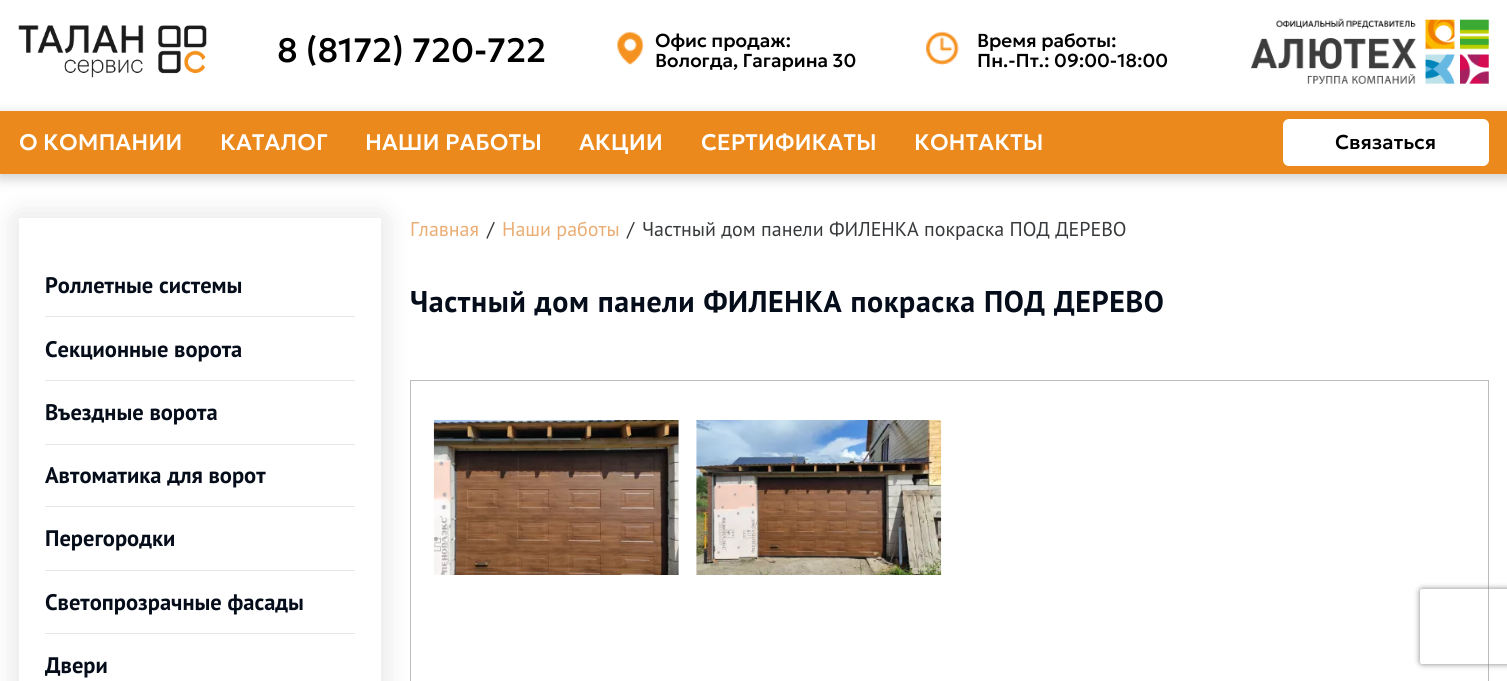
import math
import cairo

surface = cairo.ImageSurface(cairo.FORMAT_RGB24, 1507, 681)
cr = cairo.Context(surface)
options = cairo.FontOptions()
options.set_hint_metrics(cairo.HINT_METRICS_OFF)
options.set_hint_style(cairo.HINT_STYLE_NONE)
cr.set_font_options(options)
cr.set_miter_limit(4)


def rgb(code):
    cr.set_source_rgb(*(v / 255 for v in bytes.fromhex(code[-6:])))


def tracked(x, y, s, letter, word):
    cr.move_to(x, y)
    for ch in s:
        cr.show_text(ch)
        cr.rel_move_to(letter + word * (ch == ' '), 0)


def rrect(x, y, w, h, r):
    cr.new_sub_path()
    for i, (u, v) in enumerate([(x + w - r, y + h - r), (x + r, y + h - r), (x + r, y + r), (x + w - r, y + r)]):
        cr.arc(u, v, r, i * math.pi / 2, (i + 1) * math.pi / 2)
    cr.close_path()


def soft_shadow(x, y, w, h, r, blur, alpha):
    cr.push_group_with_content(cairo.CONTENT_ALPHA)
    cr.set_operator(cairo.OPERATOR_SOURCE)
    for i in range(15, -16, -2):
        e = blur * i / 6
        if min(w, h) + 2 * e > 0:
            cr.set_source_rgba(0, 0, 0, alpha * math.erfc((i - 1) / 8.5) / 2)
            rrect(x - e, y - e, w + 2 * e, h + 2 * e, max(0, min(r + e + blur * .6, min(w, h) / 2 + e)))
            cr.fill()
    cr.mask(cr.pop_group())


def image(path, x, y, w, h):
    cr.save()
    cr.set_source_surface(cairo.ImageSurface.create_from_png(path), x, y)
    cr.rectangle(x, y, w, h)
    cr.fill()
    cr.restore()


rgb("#ffffff")
cr.paint()
image("img/1.png", 18, 25, 189, 53)
image("img/2.png", 617, 31, 27, 34)
image("img/3.png", 926, 31, 33, 34)
image("img/4.png", 1251, 18, 238, 66)
rgb("#b2b2b2")
soft_shadow(-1, 114, 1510, 65, 0, 6, 0.6)
rgb("#eb891c")
cr.rectangle(0, 111, 1507, 63)
cr.fill()
rgb("#ffffff")
rrect(1283, 119, 206, 47, 6)
cr.fill()
cr.save()
cr.set_fill_rule(cairo.FILL_RULE_EVEN_ODD)
cr.new_path()
cr.move_to(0, 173)
cr.line_to(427, 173)
cr.line_to(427, 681)
cr.line_to(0, 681)
cr.close_path()
cr.move_to(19, 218)
cr.line_to(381, 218)
cr.line_to(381, 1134)
cr.line_to(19, 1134)
cr.close_path()
cr.clip()
rgb("#260b0b")
soft_shadow(19, 219, 362, 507, 0, 15, 0.14)
cr.restore()
for x, y, w, h, color in [
    (45, 316, 310, 1, "#e6e6e6"),
    (45, 380, 310, 1, "#e6e6e6"),
    (45, 444, 310, 1, "#e6e6e6"),
    (45, 506, 310, 1, "#e6e6e6"),
    (45, 570, 310, 1, "#e6e6e6"),
    (45, 633, 310, 1, "#e6e6e6"),
]:
    rgb(color)
    cr.rectangle(x, y, w, h)
    cr.fill()
cr.rectangle(410.5, 380.5, 1078, 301)
rgb("#bcbcbc")
cr.set_line_width(1)
cr.stroke()
image("img/5.png", 433, 420, 246, 155)
image("img/6.png", 696, 420, 246, 155)
cr.save()
cr.set_fill_rule(cairo.FILL_RULE_EVEN_ODD)
cr.new_path()
cr.move_to(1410, 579)
cr.line_to(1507, 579)
cr.line_to(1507, 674)
cr.line_to(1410, 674)
cr.close_path()
cr.move_to(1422.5, 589)
cr.line_to(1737.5, 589)
cr.curve_to(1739, 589, 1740, 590, 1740, 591.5)
cr.line_to(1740, 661.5)
cr.curve_to(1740, 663, 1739, 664, 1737.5, 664)
cr.line_to(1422.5, 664)
cr.curve_to(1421, 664, 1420, 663, 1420, 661.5)
cr.line_to(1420, 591.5)
cr.curve_to(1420, 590, 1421, 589, 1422.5, 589)
cr.close_path()
cr.clip()
rgb("#808080")
soft_shadow(1420, 589, 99, 75, 2.5, 3, 1)
cr.restore()
cr.select_font_face("Geologica Medium")
cr.set_font_size(33.75)
rgb("#000000")
cr.move_to(277, 62)
cr.show_text("8 (8172) 720-722")
cr.set_font_size(18.75)
for x, y, s in [
    (655, 47, "Офис продаж:"),
    (655, 67, "Вологда, Гагарина 30"),
    (977, 47, "Время работы:"),
    (977, 67, "Пн.-Пт.: 09:00-18:00"),
]:
    cr.move_to(x, y)
    cr.show_text(s)
cr.set_font_size(22.5)
rgb("#ffffff")
for x, y, s in [
    (19, 150, "О КОМПАНИИ"),
    (220, 150, "КАТАЛОГ"),
    (365, 150, "НАШИ РАБОТЫ"),
    (579, 150, "АКЦИИ"),
    (701, 150, "СЕРТИФИКАТЫ"),
    (914, 150, "КОНТАКТЫ"),
]:
    cr.move_to(x, y)
    cr.show_text(s)
cr.set_font_size(20)
rgb("#000000")
cr.move_to(1335, 149)
cr.show_text("Связаться")
cr.select_font_face("PT Sans", cairo.FONT_SLANT_NORMAL, cairo.FONT_WEIGHT_BOLD)
cr.set_font_size(22.5)
rgb("#050d1a")
for x, y, s in [
    (45, 293, "Роллетные системы"),
    (45, 357, "Секционные ворота"),
    (45, 420, "Въездные ворота"),
    (45, 483, "Автоматика для ворот"),
    (45, 546, "Перегородки"),
    (45, 610, "Светопрозрачные фасады"),
    (45, 673, "Двери"),
]:
    cr.move_to(x, y)
    cr.show_text(s)
cr.select_font_face("PT Sans")
cr.set_font_size(20)
rgb("#ebad74")
cr.move_to(410, 236)
cr.show_text("Главная")
rgb("#373a3c")
cr.move_to(487, 236)
cr.show_text("/")
rgb("#ebad74")
cr.move_to(502, 236)
cr.show_text("Наши работы")
rgb("#373a3c")
cr.move_to(627, 236)
cr.show_text("/")
cr.move_to(642, 236)
cr.show_text("Частный дом панели ФИЛЕНКА покраска ПОД ДЕРЕВО")
cr.select_font_face("PT Sans", cairo.FONT_SLANT_NORMAL, cairo.FONT_WEIGHT_BOLD)
cr.set_font_size(30)
rgb("#050d1a")
tracked(410, 312, "Частный дом панели ФИЛЕНКА покраска ПОД ДЕРЕВО", 0.6, 0)
surface.write_to_png("page.png")
